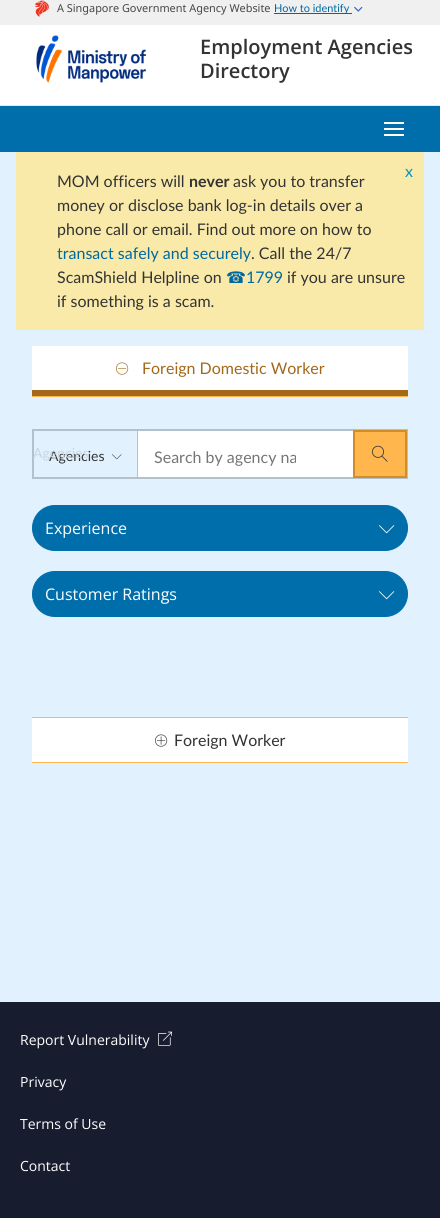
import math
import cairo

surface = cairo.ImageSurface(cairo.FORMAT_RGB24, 440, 1218)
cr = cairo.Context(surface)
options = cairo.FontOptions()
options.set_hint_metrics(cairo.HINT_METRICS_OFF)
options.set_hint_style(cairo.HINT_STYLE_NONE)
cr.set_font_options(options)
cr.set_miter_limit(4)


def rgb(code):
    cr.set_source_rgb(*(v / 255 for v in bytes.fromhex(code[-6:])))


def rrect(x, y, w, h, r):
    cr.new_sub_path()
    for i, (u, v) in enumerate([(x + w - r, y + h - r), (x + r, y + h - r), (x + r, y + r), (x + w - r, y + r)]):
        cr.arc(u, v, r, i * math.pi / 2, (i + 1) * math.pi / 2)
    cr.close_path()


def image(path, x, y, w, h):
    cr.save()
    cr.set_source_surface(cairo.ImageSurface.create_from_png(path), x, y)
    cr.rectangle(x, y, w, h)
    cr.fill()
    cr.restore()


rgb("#f0f0f0")
cr.paint()
rgb("#e4ebeb")
cr.rectangle(0, 105, 440, 1)
cr.fill()
image("img/1.png", 35, 0, 14, 17)
rgb("#0068a1")
cr.rectangle(274, 13, 78, 1)
cr.fill()
image("img/2.png", 354, 6, 9, 6)
rgb("#ffffff")
cr.rectangle(0, 25, 440, 80)
cr.fill()
image("img/3.png", 36, 35, 110, 48)
for x, y, w, h, color in [
    (0, 152, 440, 850, "#e2f1fe"),
    (0, 106, 440, 46, "#006eab"),
    (384, 122, 20, 2, "#ffffff"),
    (384, 128, 20, 2, "#ffffff"),
    (384, 134, 20, 2, "#ffffff"),
    (16, 152, 408, 178, "#f9eaaa"),
    (32, 396, 376, 1, "#ffb74d"),
    (32, 346, 376, 44, "#ffffff"),
    (32, 390, 376, 6, "#a36818"),
]:
    rgb(color)
    cr.rectangle(x, y, w, h)
    cr.fill()
image("img/4.png", 116, 362, 13, 13)
for x, y, w, h, color in [
    (32, 717, 376, 1, "#ffb74d"),
    (138, 431, 215, 46, "#ffffff"),
    (137, 430, 1, 48, "#b3c1ca"),
    (32, 429, 376, 2, "#b3c1ca"),
    (406, 429, 2, 50, "#b3c1ca"),
    (32, 477, 376, 2, "#b3c1ca"),
    (32, 429, 2, 50, "#b3c1ca"),
]:
    rgb(color)
    cr.rectangle(x, y, w, h)
    cr.fill()
image("img/5.png", 112, 454, 10, 6)
rgb("#ffb74d")
cr.rectangle(354, 431, 52, 46)
cr.fill_preserve()
rgb("#d38d27")
cr.stroke()
image("img/6.png", 372, 445, 16, 17)
rgb("#006eab")
rrect(32.5, 505.5, 375, 45, 22.5)
cr.fill_preserve()
cr.set_line_width(1)
cr.stroke()
image("img/7.png", 379, 525, 16, 9)
rrect(32.5, 571.5, 375, 45, 22.5)
cr.fill_preserve()
cr.stroke()
image("img/7.png", 379, 591, 16, 9)
rgb("#ffb74d")
cr.rectangle(32, 762, 376, 1)
cr.fill()
rgb("#ffffff")
cr.rectangle(32, 718, 376, 44)
cr.fill()
image("img/8.png", 155, 734, 13, 13)
rgb("#181c2f")
cr.rectangle(0, 1002, 440, 216)
cr.fill()
image("img/9.png", 158, 1031, 14, 15)
cr.select_font_face("Noto Sans")
cr.set_font_size(10.9)
rgb("#474747")
cr.move_to(57, 12)
cr.show_text("A Singapore Government Agency Website")
cr.select_font_face("Lato")
rgb("#0068a1")
cr.move_to(274, 12)
cr.show_text("How to identify")
cr.select_font_face("Open Sans SemiBold")
cr.set_font_size(20)
rgb("#333333")
cr.move_to(200, 54)
cr.show_text("Employment Agencies")
cr.move_to(200, 78)
cr.show_text("Directory")
cr.select_font_face("Lato")
cr.set_font_size(16)
rgb("#0094c6")
cr.move_to(405, 177)
cr.show_text("x")
rgb("#333333")
cr.move_to(57, 187)
cr.show_text("MOM officers will")
cr.select_font_face("Lato", cairo.FONT_SLANT_NORMAL, cairo.FONT_WEIGHT_BOLD)
cr.move_to(189, 187)
cr.show_text("never")
cr.select_font_face("Lato")
for x, y, s in [
    (233, 187, "ask you to transfer"),
    (57, 211, "money or disclose bank log-in details over a"),
    (57, 235, "phone call or email. Find out more on how to"),
]:
    cr.move_to(x, y)
    cr.show_text(s)
rgb("#0068a1")
cr.move_to(57, 259)
cr.show_text("transact safely and securely")
rgb("#333333")
cr.move_to(251, 259)
cr.show_text(". Call the 24/7")
cr.move_to(57, 283)
cr.show_text("ScamShield Helpline on")
cr.select_font_face("DejaVu Sans")
rgb("#0068a1")
cr.move_to(226, 283)
cr.show_text("☎")
cr.select_font_face("Lato")
cr.move_to(246, 283)
cr.show_text("1799")
rgb("#333333")
cr.move_to(287, 283)
cr.show_text("if you are unsure")
cr.move_to(57, 307)
cr.show_text("if something is a scam.")
rgb("#a36818")
cr.move_to(142, 374)
cr.show_text("Foreign Domestic Worker")
cr.set_font_size(14)
rgb("#333333")
cr.move_to(49, 461)
cr.show_text("Agencies")
rgb("#c9d5e1")
cr.move_to(33, 458)
cr.show_text("Agencies")
cr.set_font_size(16)
rgb("#757575")
cr.move_to(154, 463)
cr.show_text("Search by agency na")
cr.select_font_face("Open Sans")
rgb("#ffffff")
cr.move_to(45, 534)
cr.show_text("Experience")
cr.move_to(45, 600)
cr.show_text("Customer Ratings")
cr.select_font_face("Lato")
rgb("#333333")
cr.move_to(174, 746)
cr.show_text("Foreign Worker")
cr.select_font_face("Open Sans")
cr.set_font_size(14)
rgb("#ffffff")
for x, y, s in [
    (20, 1045, "Report Vulnerability"),
    (20, 1087, "Privacy"),
    (20, 1129, "Terms of Use"),
    (20, 1171, "Contact"),
]:
    cr.move_to(x, y)
    cr.show_text(s)
surface.write_to_png("page.png")
